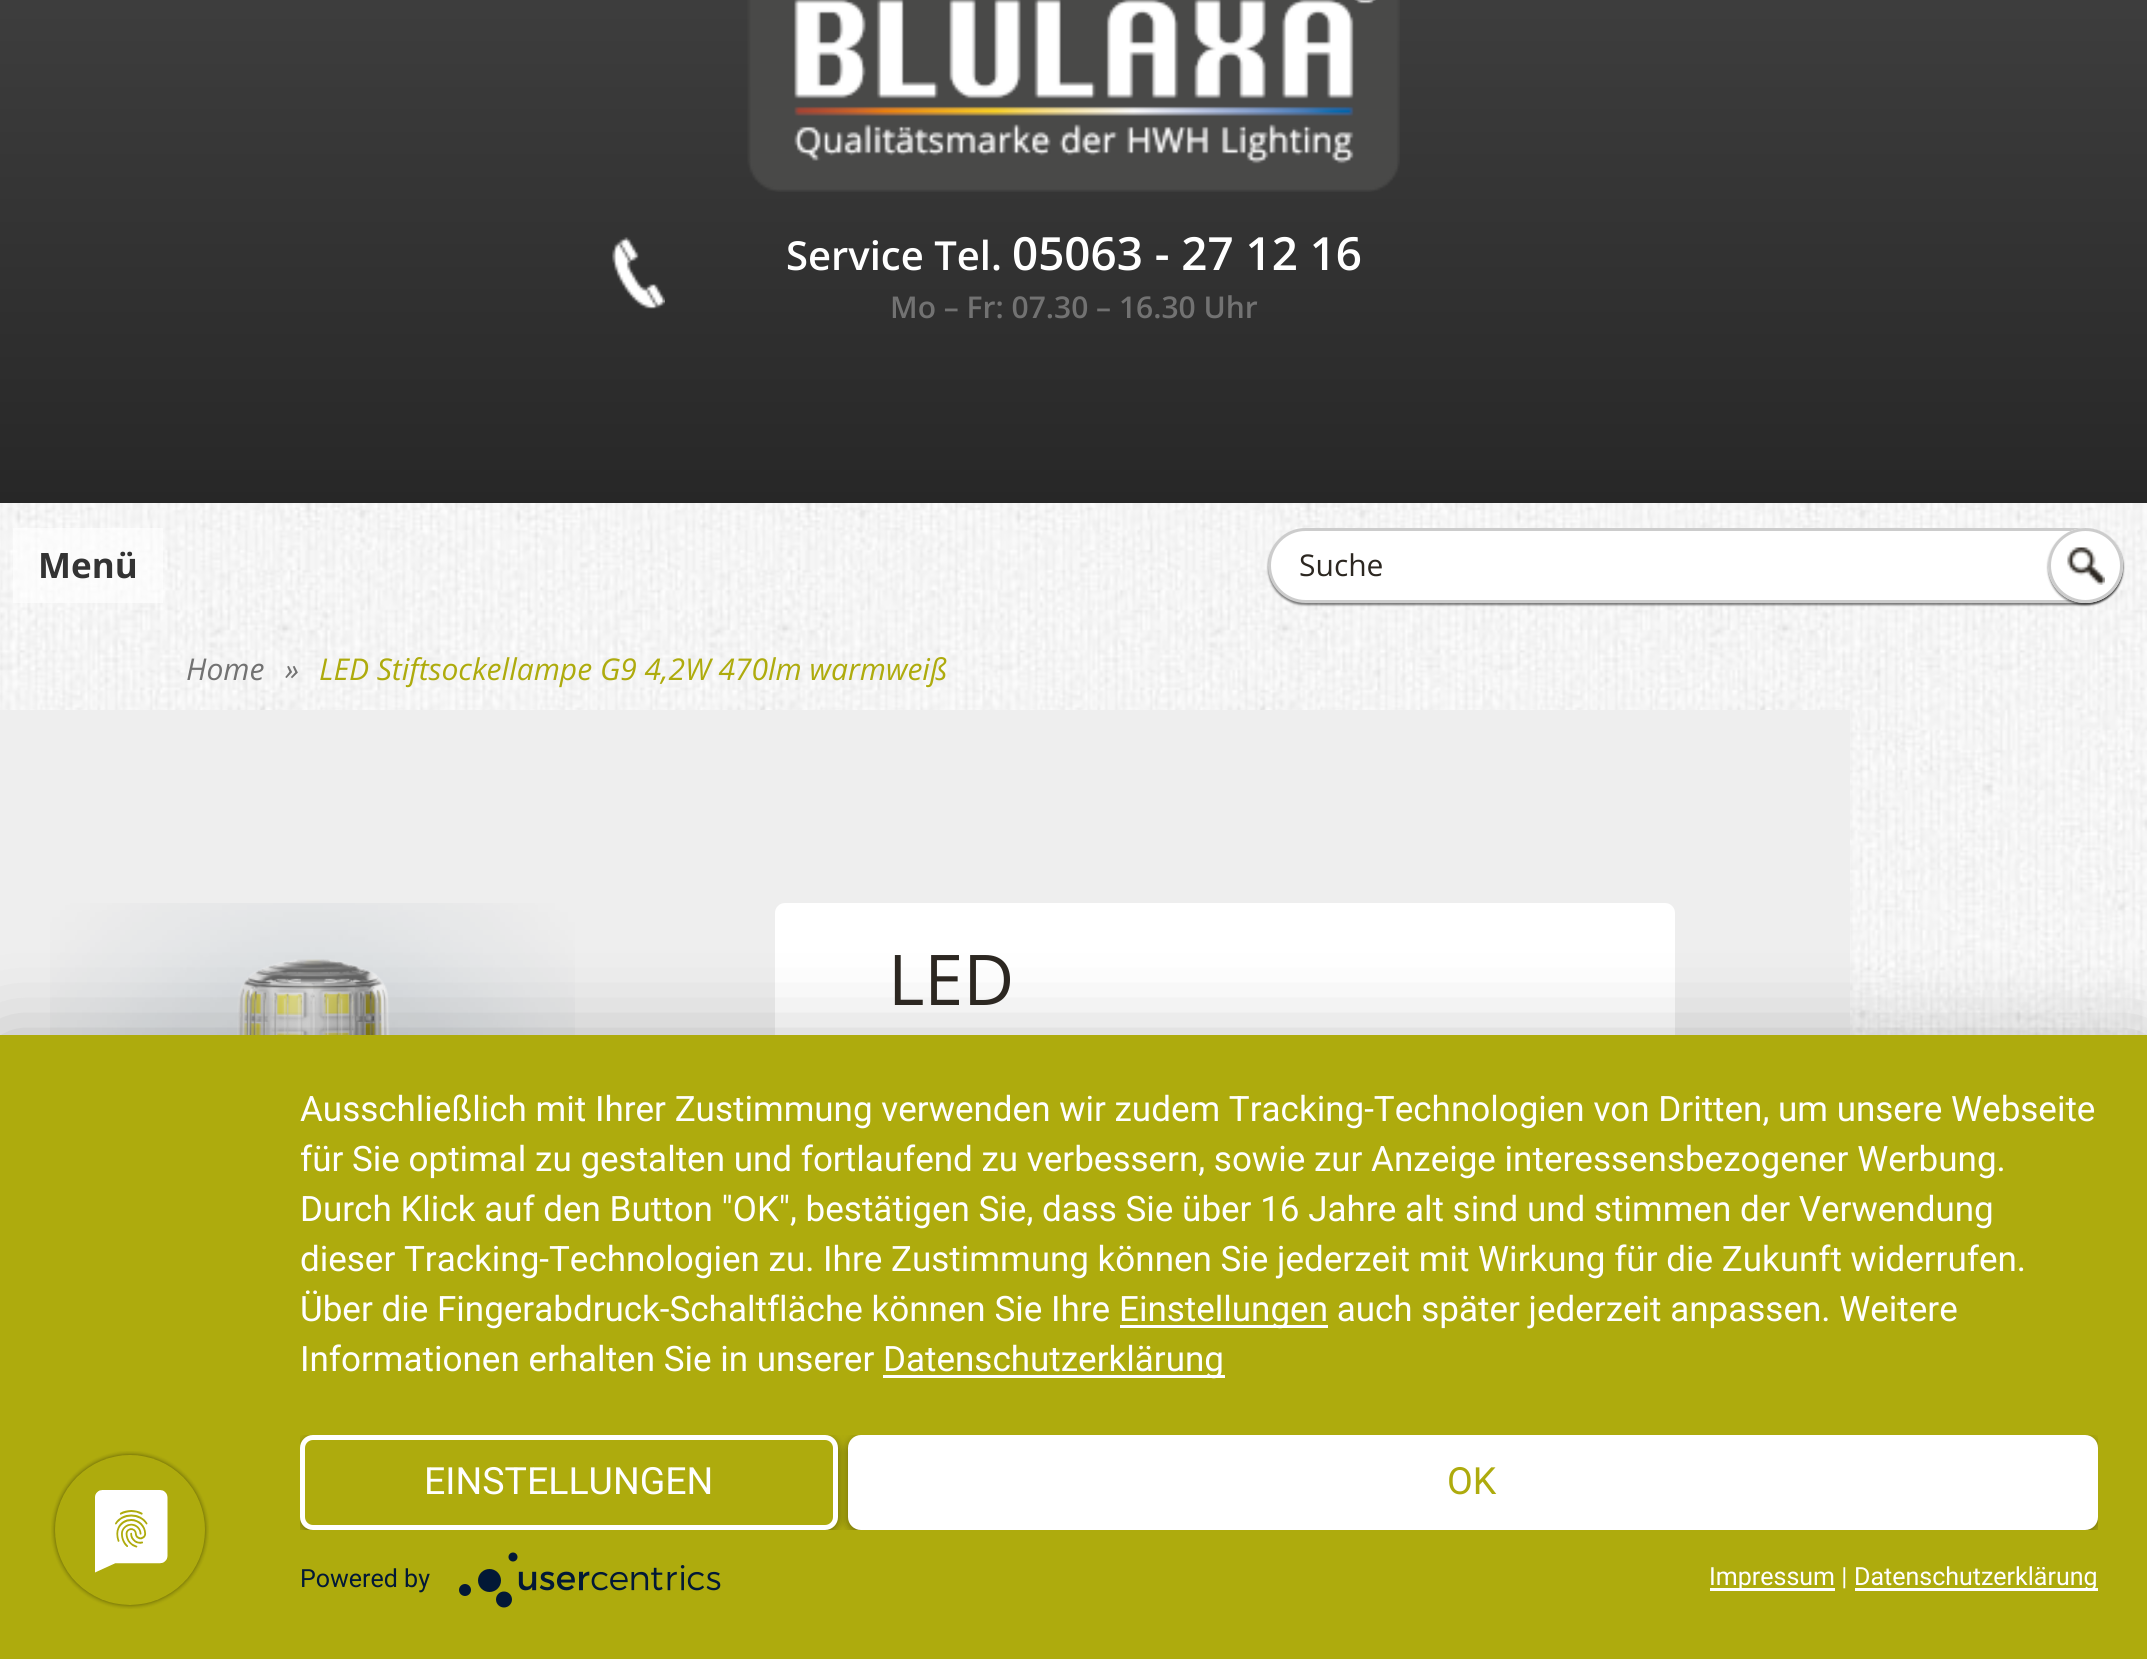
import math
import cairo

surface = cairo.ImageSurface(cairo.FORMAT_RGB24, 2147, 1659)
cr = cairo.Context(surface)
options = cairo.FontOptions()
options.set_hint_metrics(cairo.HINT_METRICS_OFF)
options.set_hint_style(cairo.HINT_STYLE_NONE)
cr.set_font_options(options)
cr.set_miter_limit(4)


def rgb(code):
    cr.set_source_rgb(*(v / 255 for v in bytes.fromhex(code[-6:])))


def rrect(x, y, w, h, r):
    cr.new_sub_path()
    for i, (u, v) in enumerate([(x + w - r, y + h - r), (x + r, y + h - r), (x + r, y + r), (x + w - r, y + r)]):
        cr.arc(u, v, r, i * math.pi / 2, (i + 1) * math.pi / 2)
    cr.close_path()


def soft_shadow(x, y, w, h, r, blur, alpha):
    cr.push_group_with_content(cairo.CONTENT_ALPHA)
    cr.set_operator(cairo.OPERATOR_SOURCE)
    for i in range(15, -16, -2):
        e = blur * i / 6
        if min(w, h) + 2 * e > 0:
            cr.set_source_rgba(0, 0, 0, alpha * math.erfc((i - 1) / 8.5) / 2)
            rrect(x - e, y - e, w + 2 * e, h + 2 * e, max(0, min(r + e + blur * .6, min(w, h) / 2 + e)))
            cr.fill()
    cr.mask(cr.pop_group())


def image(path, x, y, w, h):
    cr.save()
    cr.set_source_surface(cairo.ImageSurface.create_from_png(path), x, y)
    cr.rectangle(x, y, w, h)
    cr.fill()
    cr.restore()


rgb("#ffffff")
cr.paint()
image("img/1.png", 0, 503, 2147, 532)
gradient = cairo.LinearGradient(1074, 503, 1074, -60)
gradient.add_color_stop_rgba(0, 0.153, 0.153, 0.153, 1)
gradient.add_color_stop_rgba(1, 0.251, 0.251, 0.251, 1)
cr.set_source(gradient)
cr.rectangle(0, 0, 2147, 503)
cr.fill()
image("img/2.png", 747, 0, 653, 192)
image("img/3.png", 612, 237, 53, 72)
cr.set_source_rgba(1, 1, 1, 0.63)
cr.rectangle(13, 528, 150, 75)
cr.fill()
rgb("#000000")
soft_shadow(1268, 530, 855, 75, 37.5, 1, 0.51)
rgb("#ffffff")
rrect(1269.5, 529.5, 852, 72, 36)
cr.fill_preserve()
rgb("#cccccc")
cr.set_line_width(3)
cr.stroke()
rgb("#000000")
soft_shadow(2048, 530, 75, 75, 37.5, 1, 0.51)
rgb("#ffffff")
cr.arc(2085.5, 565.5, 37.5, 0, 2 * math.pi)
cr.fill()
image("img/4.png", 2067, 547, 38, 38)
cr.arc(2085.5, 565.5, 36, 0, 2 * math.pi)
rgb("#cccccc")
cr.stroke()
rgb("#eeeeee")
cr.rectangle(0, 710, 1850, 325)
cr.fill()
image("img/5.png", 50, 903, 525, 132)
image("img/6.png", 237, 959, 153, 76)
rgb("#ffffff")
rrect(775, 903, 900, 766, 10)
cr.fill()
rgb("#000000")
soft_shadow(0, 1050, 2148, 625, 0, 45, 0.3)
rgb("#aeab0d")
cr.rectangle(0, 1035, 2147, 624)
cr.fill()
image("img/7.png", 51, 1451, 158, 158)
rgb("#ffffff")
cr.rectangle(1120, 1325, 208, 3)
cr.fill()
cr.rectangle(883, 1375, 342, 3)
cr.fill()
cr.save()
cr.rectangle(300, 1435, 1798, 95)
cr.clip()
rgb("#000000")
soft_shadow(848, 1438, 1250, 95, 13, 5, 0.4)
cr.restore()
rrect(850.5, 1437.5, 1245, 90, 10.5)
cr.fill_preserve()
cr.set_line_width(5)
cr.stroke()
cr.save()
cr.rectangle(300, 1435, 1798, 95)
cr.clip()
rgb("#000000")
soft_shadow(300, 1438, 538, 95, 13, 5, 0.4)
cr.restore()
rgb("#aeab0d")
rrect(302.5, 1437.5, 533, 90, 10.5)
cr.fill_preserve()
rgb("#ffffff")
cr.stroke()
image("img/8.png", 459, 1552, 262, 56)
cr.rectangle(1710, 1588, 125, 3)
cr.fill()
cr.rectangle(1855, 1588, 243, 3)
cr.fill()
cr.select_font_face("Open Sans SemiBold")
cr.set_font_size(40)
cr.move_to(786, 270)
cr.show_text("Service Tel.")
cr.set_font_size(45.75)
cr.move_to(1012, 270)
cr.show_text("05063 - 27 12 16")
cr.set_font_size(30)
rgb("#727272")
cr.move_to(890, 318)
cr.show_text("Mo – Fr: 07.30 – 16.30 Uhr")
cr.select_font_face("Open Sans", cairo.FONT_SLANT_NORMAL, cairo.FONT_WEIGHT_BOLD)
cr.set_font_size(35)
rgb("#333333")
cr.move_to(38, 578)
cr.show_text("Menü")
cr.select_font_face("Open Sans")
cr.set_font_size(30)
rgb("#2c2721")
cr.move_to(1299, 576)
cr.show_text("Suche")
cr.select_font_face("Open Sans", cairo.FONT_SLANT_ITALIC)
rgb("#727272")
cr.move_to(186, 680)
cr.show_text("Home")
cr.move_to(285, 680)
cr.show_text("»")
rgb("#aeab0d")
cr.move_to(319, 680)
cr.show_text("LED Stiftsockellampe G9 4,2W 470lm warmweiß")
cr.select_font_face("Open Sans")
cr.set_font_size(70)
rgb("#2c2721")
cr.move_to(888, 1005)
cr.show_text("LED")
cr.select_font_face("Roboto")
cr.set_font_size(35)
rgb("#ffffff")
for x, y, s in [
    (300, 1121, "Ausschließlich mit Ihrer Zustimmung verwenden wir zudem Tracking-Technologien von Dritten, um unsere Webseite"),
    (300, 1171, "für Sie optimal zu gestalten und fortlaufend zu verbessern, sowie zur Anzeige interessensbezogener Werbung."),
    (300, 1221, "Durch Klick auf den Button \"OK\", bestätigen Sie, dass Sie über 16 Jahre alt sind und stimmen der Verwendung"),
    (300, 1271, "dieser Tracking-Technologien zu. Ihre Zustimmung können Sie jederzeit mit Wirkung für die Zukunft widerrufen."),
    (300, 1321, "Über die Fingerabdruck-Schaltfläche können Sie Ihre"),
    (1119, 1321, "Einstellungen auch später jederzeit anpassen. Weitere"),
    (300, 1371, "Informationen erhalten Sie in unserer"),
    (883, 1371, "Datenschutzerklärung"),
]:
    cr.move_to(x, y)
    cr.show_text(s)
cr.set_font_size(37.5)
cr.move_to(424, 1494)
cr.show_text("EINSTELLUNGEN")
rgb("#aeab0d")
cr.move_to(1447, 1494)
cr.show_text("OK")
cr.set_font_size(25)
rgb("#021836")
cr.move_to(300, 1587)
cr.show_text("Powered by")
rgb("#ffffff")
cr.move_to(1709, 1585)
cr.show_text("Impressum |")
cr.move_to(1854, 1585)
cr.show_text("Datenschutzerklärung")
surface.write_to_png("page.png")
